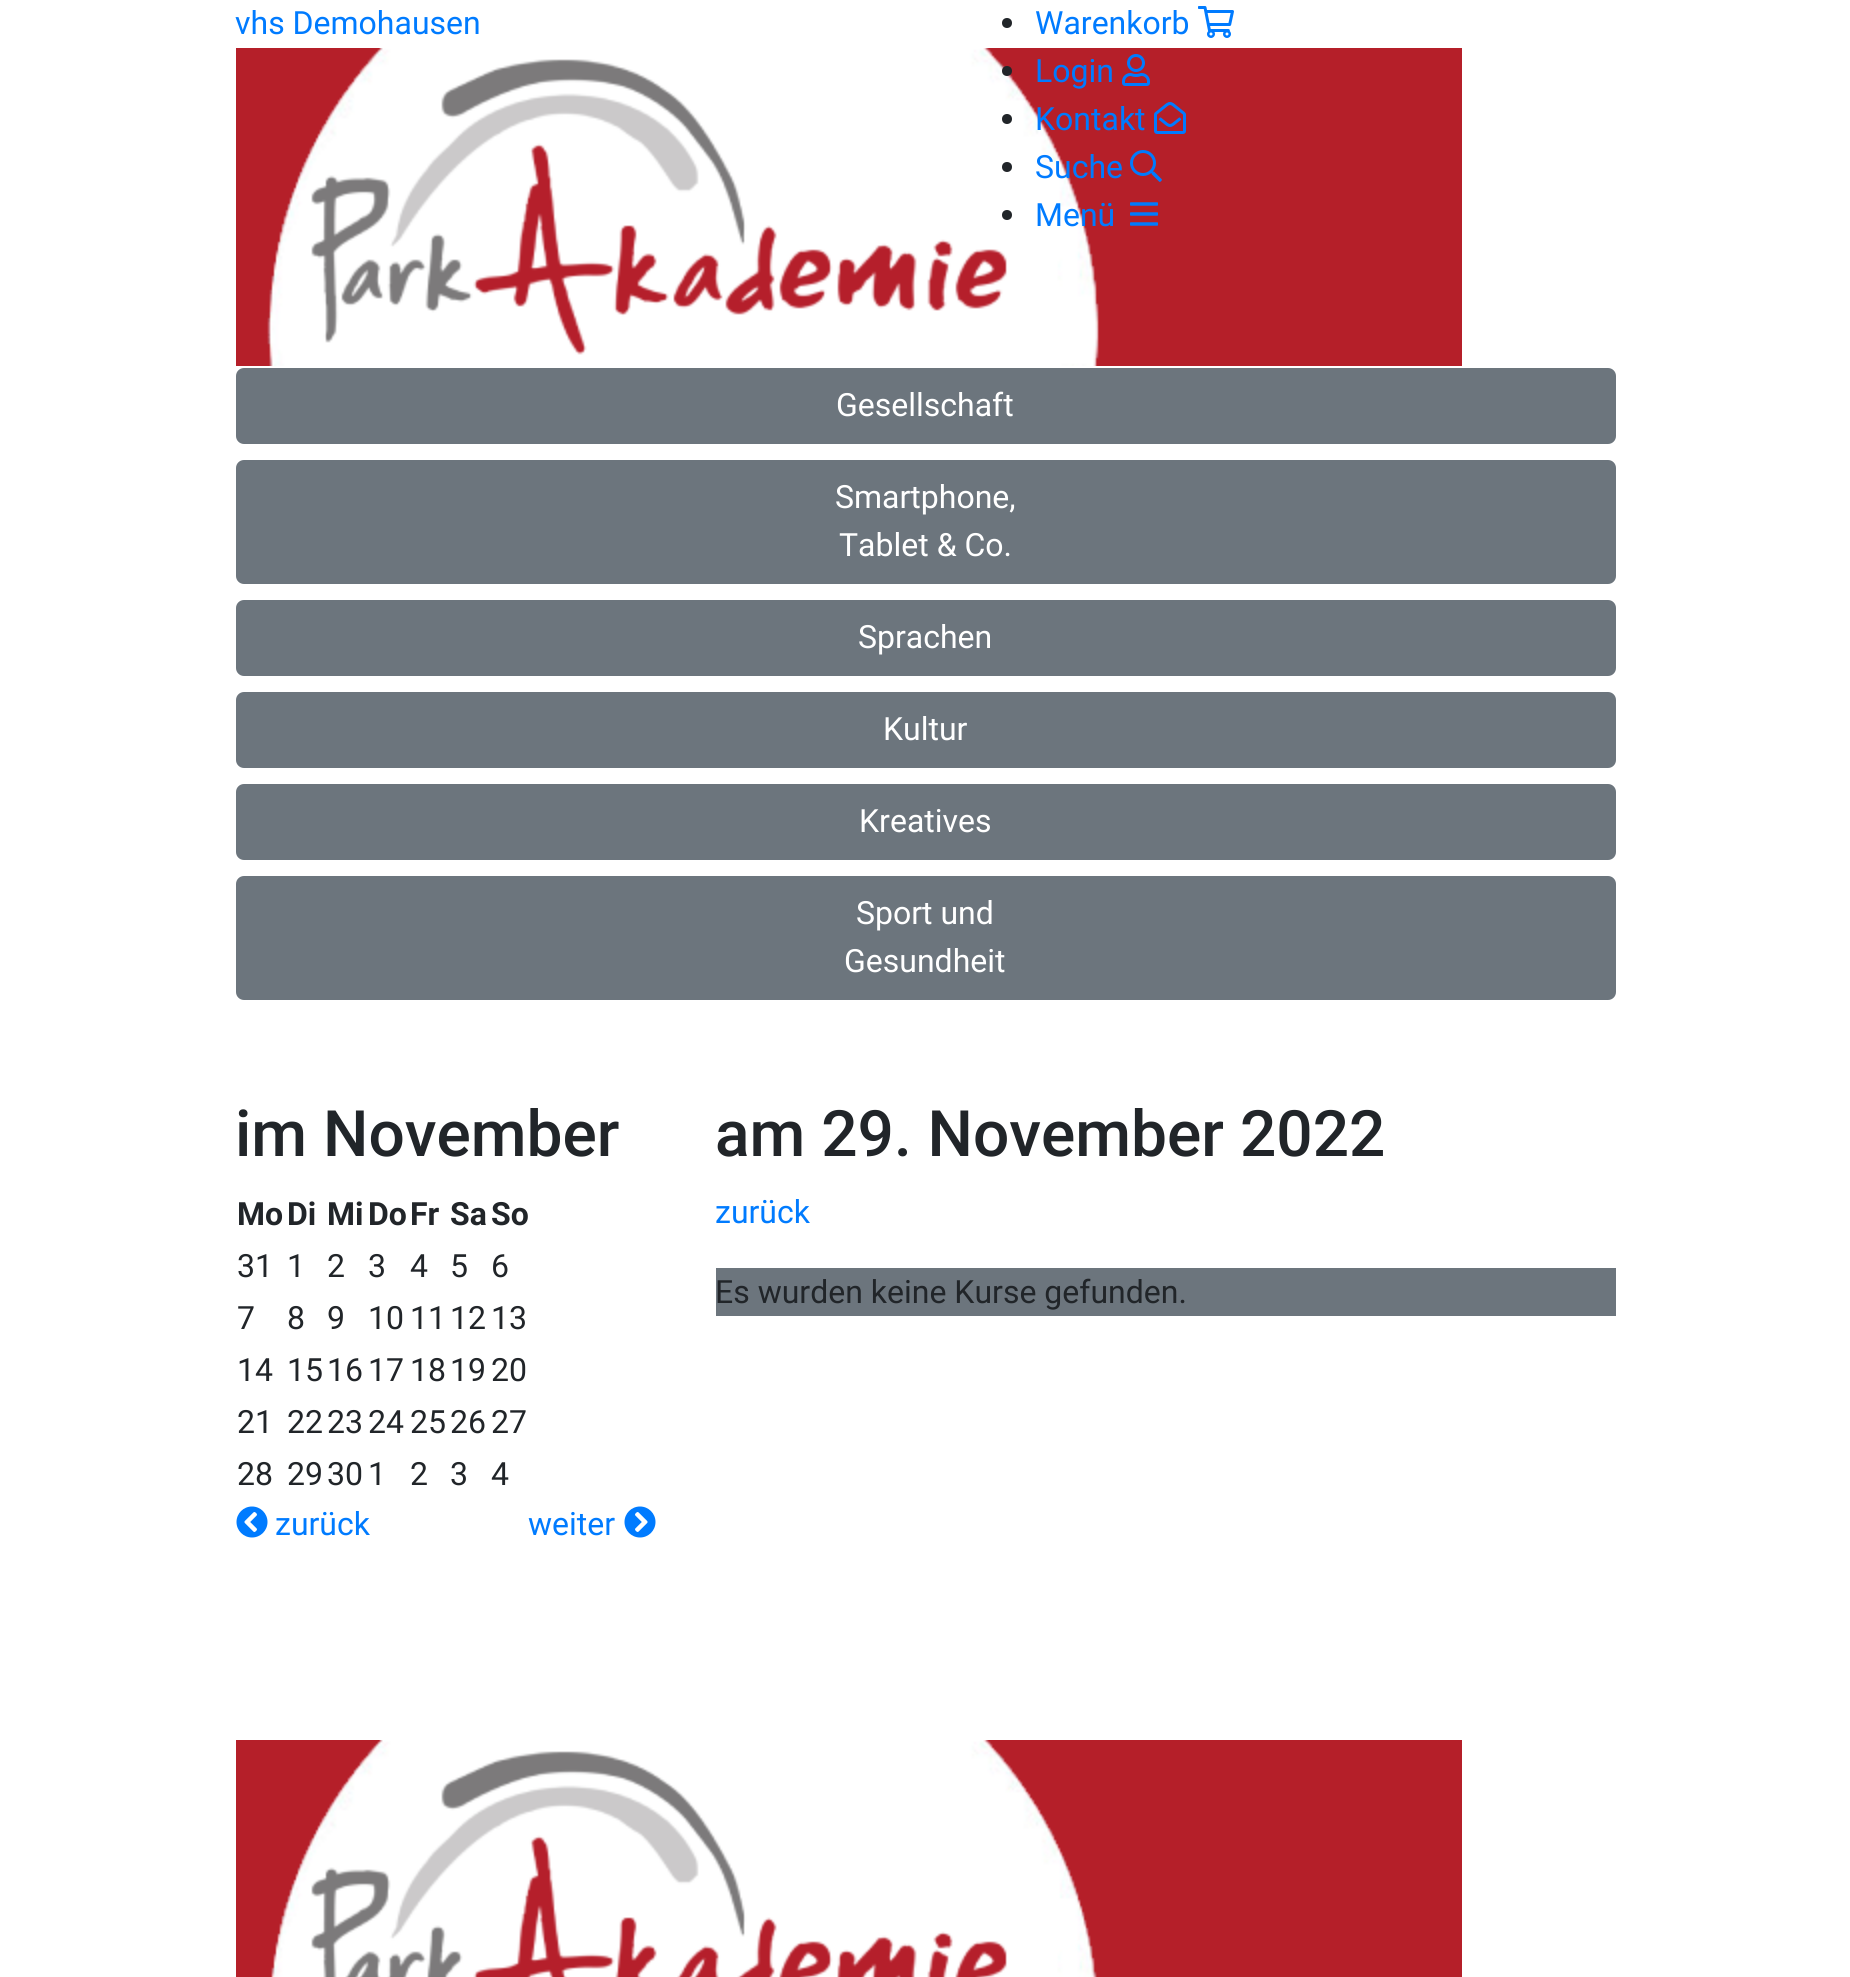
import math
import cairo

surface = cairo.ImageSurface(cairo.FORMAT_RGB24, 1850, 1977)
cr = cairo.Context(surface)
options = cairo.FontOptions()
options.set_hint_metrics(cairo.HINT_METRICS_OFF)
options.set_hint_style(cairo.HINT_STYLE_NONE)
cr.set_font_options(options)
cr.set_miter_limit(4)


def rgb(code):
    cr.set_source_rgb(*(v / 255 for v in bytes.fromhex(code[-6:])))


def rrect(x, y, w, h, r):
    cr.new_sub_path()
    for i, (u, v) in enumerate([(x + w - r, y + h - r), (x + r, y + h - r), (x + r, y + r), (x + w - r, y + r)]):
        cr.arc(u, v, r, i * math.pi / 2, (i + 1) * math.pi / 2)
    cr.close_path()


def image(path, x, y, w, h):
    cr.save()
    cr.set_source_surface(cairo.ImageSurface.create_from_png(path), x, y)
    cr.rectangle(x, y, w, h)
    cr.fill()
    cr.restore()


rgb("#ffffff")
cr.paint()
image("img/1.png", 236, 48, 1226, 318)
rgb("#212529")
cr.arc(1007, 23, 5, 0, 2 * math.pi)
cr.fill()
image("img/2.png", 1198, 6, 36, 32)
cr.arc(1007, 71, 5, 0, 2 * math.pi)
cr.fill()
image("img/3.png", 1122, 54, 28, 32)
cr.arc(1007, 119, 5, 0, 2 * math.pi)
cr.fill()
image("img/4.png", 1154, 102, 32, 32)
cr.arc(1007, 167, 5, 0, 2 * math.pi)
cr.fill()
image("img/5.png", 1130, 150, 32, 32)
cr.arc(1007, 215, 5, 0, 2 * math.pi)
cr.fill()
image("img/6.png", 1130, 202, 28, 24)
rgb("#6c757d")
rrect(237, 369, 1378, 74, 7)
cr.fill_preserve()
cr.stroke()
rrect(237, 461, 1378, 122, 7)
cr.fill_preserve()
cr.stroke()
rrect(237, 601, 1378, 74, 7)
cr.fill_preserve()
cr.stroke()
rrect(237, 693, 1378, 74, 7)
cr.fill_preserve()
cr.stroke()
rrect(237, 785, 1378, 74, 7)
cr.fill_preserve()
cr.stroke()
rrect(237, 877, 1378, 122, 7)
cr.fill_preserve()
cr.stroke()
image("img/7.png", 236, 1506, 32, 32)
image("img/8.png", 624, 1506, 32, 32)
cr.rectangle(716, 1268, 900, 48)
cr.fill()
image("img/9.png", 236, 1740, 1226, 237)
cr.select_font_face("Roboto")
cr.set_font_size(32)
rgb("#007bff")
for x, y, s in [
    (235, 34, "vhs Demohausen"),
    (1035, 34, "Warenkorb"),
    (1035, 82, "Login"),
    (1035, 130, "Kontakt"),
    (1035, 178, "Suche"),
    (1035, 226, "Menü"),
]:
    cr.move_to(x, y)
    cr.show_text(s)
rgb("#ffffff")
for x, y, s in [
    (836, 416, "Gesellschaft"),
    (835, 508, "Smartphone,"),
    (839, 556, "Tablet & Co."),
    (858, 648, "Sprachen"),
    (883, 740, "Kultur"),
    (859, 832, "Kreatives"),
    (856, 924, "Sport und"),
    (844, 972, "Gesundheit"),
]:
    cr.move_to(x, y)
    cr.show_text(s)
cr.select_font_face("Roboto Medium")
cr.set_font_size(64)
rgb("#212529")
cr.move_to(235, 1156)
cr.show_text("im November")
cr.select_font_face("Roboto", cairo.FONT_SLANT_NORMAL, cairo.FONT_WEIGHT_BOLD)
cr.set_font_size(32)
for x, y, s in [
    (237, 1225, "Mo"),
    (287, 1225, "Di"),
    (327, 1225, "Mi"),
    (368, 1225, "Do"),
    (410, 1225, "Fr"),
    (450, 1225, "Sa"),
    (491, 1225, "So"),
]:
    cr.move_to(x, y)
    cr.show_text(s)
cr.select_font_face("Roboto")
for x, y, s in [
    (237, 1277, "31"),
    (287, 1277, "1"),
    (327, 1277, "2"),
    (368, 1277, "3"),
    (410, 1277, "4"),
    (450, 1277, "5"),
    (491, 1277, "6"),
    (237, 1329, "7"),
    (287, 1329, "8"),
    (327, 1329, "9"),
    (368, 1329, "10"),
    (410, 1329, "11"),
    (450, 1329, "12"),
    (491, 1329, "13"),
    (237, 1381, "14"),
    (287, 1381, "15"),
    (327, 1381, "16"),
    (368, 1381, "17"),
    (410, 1381, "18"),
    (450, 1381, "19"),
    (491, 1381, "20"),
    (237, 1433, "21"),
    (287, 1433, "22"),
    (327, 1433, "23"),
    (368, 1433, "24"),
    (410, 1433, "25"),
    (450, 1433, "26"),
    (491, 1433, "27"),
    (237, 1485, "28"),
    (287, 1485, "29"),
    (327, 1485, "30"),
    (368, 1485, "1"),
    (410, 1485, "2"),
    (450, 1485, "3"),
    (491, 1485, "4"),
]:
    cr.move_to(x, y)
    cr.show_text(s)
rgb("#007bff")
cr.move_to(275, 1535)
cr.show_text("zurück")
cr.move_to(528, 1535)
cr.show_text("weiter")
cr.select_font_face("Roboto Medium")
cr.set_font_size(64)
rgb("#212529")
cr.move_to(715, 1156)
cr.show_text("am 29. November 2022")
cr.select_font_face("Roboto")
cr.set_font_size(32)
rgb("#007bff")
cr.move_to(715, 1223)
cr.show_text("zurück")
rgb("#212529")
cr.move_to(715, 1303)
cr.show_text("Es wurden keine Kurse gefunden.")
surface.write_to_png("page.png")
